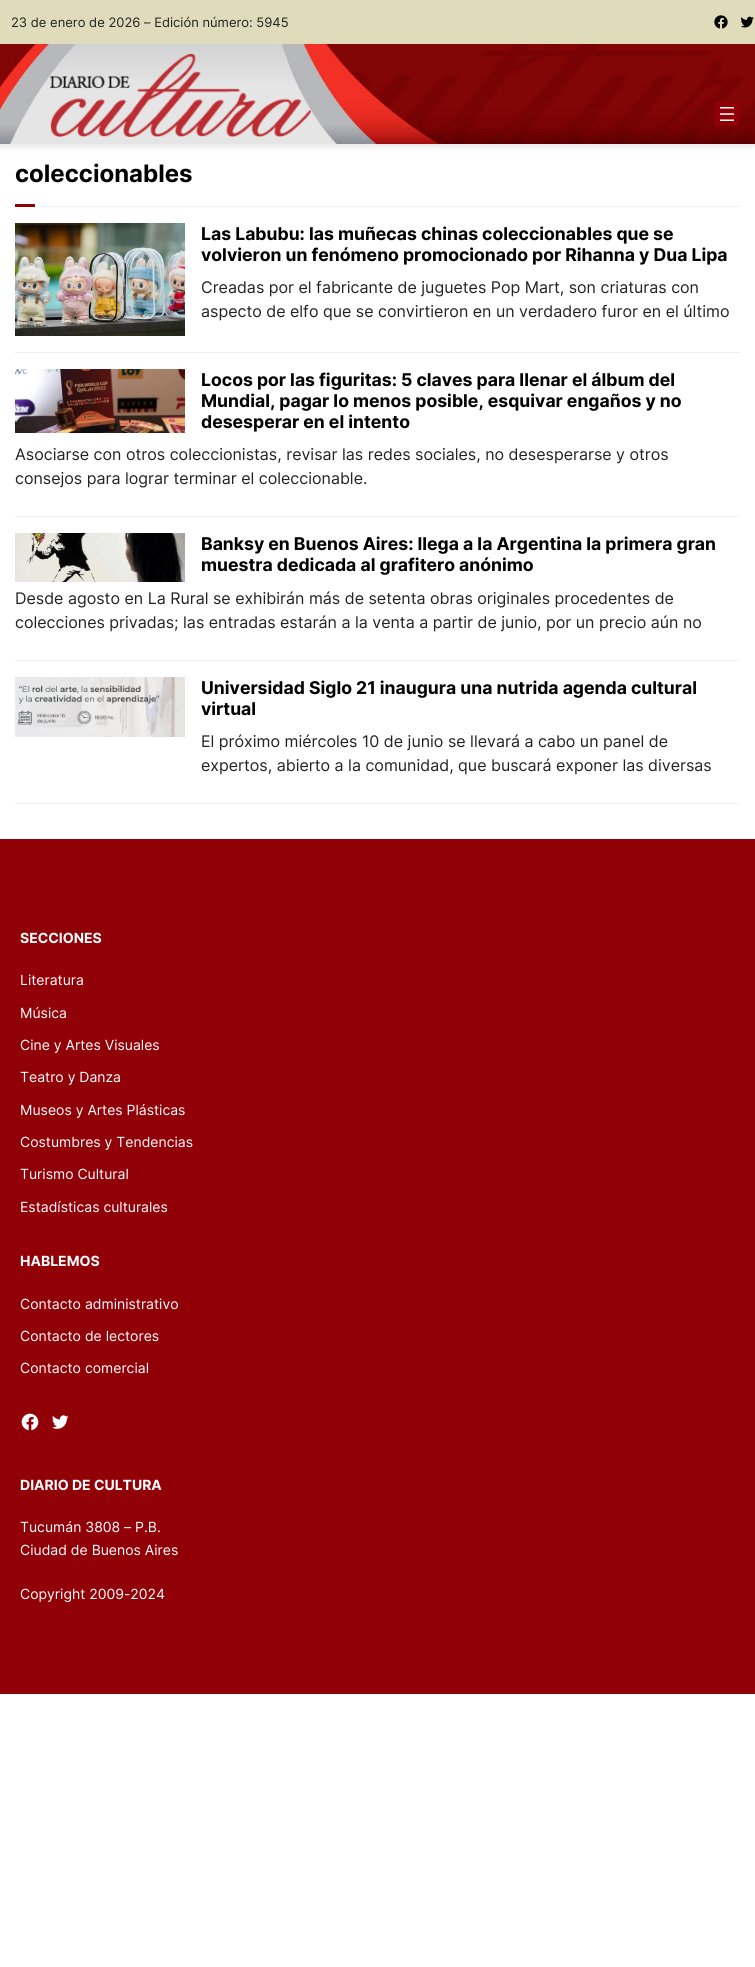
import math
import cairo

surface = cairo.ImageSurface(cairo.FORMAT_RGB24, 755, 1967)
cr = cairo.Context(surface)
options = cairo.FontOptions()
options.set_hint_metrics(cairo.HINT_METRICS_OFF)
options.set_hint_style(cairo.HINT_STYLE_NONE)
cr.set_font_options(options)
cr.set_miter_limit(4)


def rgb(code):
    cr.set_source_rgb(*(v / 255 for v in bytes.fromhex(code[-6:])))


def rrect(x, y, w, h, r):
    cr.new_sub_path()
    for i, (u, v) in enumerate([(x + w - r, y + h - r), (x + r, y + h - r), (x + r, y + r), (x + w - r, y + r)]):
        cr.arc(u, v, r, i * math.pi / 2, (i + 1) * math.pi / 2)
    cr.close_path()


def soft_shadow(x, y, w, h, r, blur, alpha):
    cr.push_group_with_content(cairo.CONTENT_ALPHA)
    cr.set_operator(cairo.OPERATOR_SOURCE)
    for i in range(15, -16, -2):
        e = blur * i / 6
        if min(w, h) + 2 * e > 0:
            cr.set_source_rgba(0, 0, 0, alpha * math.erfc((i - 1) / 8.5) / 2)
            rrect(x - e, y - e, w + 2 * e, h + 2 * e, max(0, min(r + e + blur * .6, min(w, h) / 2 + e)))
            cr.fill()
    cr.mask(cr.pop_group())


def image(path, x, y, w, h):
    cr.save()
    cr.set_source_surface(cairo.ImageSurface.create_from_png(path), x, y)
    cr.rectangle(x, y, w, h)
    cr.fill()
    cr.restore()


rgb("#ffffff")
cr.paint()
rgb("#636363")
soft_shadow(0, 2, 755, 144, 0, 4, 0.2)
rgb("#e0dcbb")
cr.rectangle(0, 0, 755, 44)
cr.fill()
image("img/1.png", 714, 15, 14, 14)
image("img/2.png", 740, 16, 14, 12)
image("img/3.png", 0, 44, 755, 100)
image("img/4.png", 50, 54, 261, 83)
rgb("#920007")
cr.rectangle(715, 102, 24, 24)
cr.fill()
image("img/5.png", 720, 107, 14, 14)
for x, y, w, h, color in [
    (35, 206, 705, 1, "#f0f0f0"),
    (15, 204, 20, 3, "#920007"),
    (15, 352, 725, 1, "#f0f0f0"),
]:
    rgb(color)
    cr.rectangle(x, y, w, h)
    cr.fill()
image("img/6.png", 15, 223, 170, 113)
cr.rectangle(15, 516, 725, 1)
cr.fill()
image("img/7.png", 15, 369, 170, 64)
cr.rectangle(15, 660, 725, 1)
cr.fill()
image("img/8.png", 15, 533, 170, 49)
cr.rectangle(15, 803, 725, 1)
cr.fill()
image("img/9.png", 15, 677, 170, 60)
rgb("#920007")
cr.rectangle(0, 839, 755, 855)
cr.fill()
image("img/10.png", 21, 1413, 18, 18)
image("img/11.png", 52, 1415, 17, 14)
cr.select_font_face("Inter")
cr.set_font_size(13)
rgb("#222222")
cr.move_to(11, 27)
cr.show_text("23 de enero de 2026 – Edición número: 5945")
cr.select_font_face("Inter", cairo.FONT_SLANT_NORMAL, cairo.FONT_WEIGHT_BOLD)
cr.set_font_size(24)
rgb("#000000")
cr.move_to(15, 182)
cr.show_text("coleccionables")
cr.set_font_size(17.6)
cr.move_to(201, 240)
cr.show_text("Las Labubu: las muñecas chinas coleccionables que se")
cr.move_to(201, 261)
cr.show_text("volvieron un fenómeno promocionado por Rihanna y Dua Lipa")
cr.select_font_face("Inter")
cr.set_font_size(16)
rgb("#222222")
cr.move_to(201, 293)
cr.show_text("Creadas por el fabricante de juguetes Pop Mart, son criaturas con")
cr.move_to(201, 317)
cr.show_text("aspecto de elfo que se convirtieron en un verdadero furor en el último")
cr.select_font_face("Inter", cairo.FONT_SLANT_NORMAL, cairo.FONT_WEIGHT_BOLD)
cr.set_font_size(17.6)
rgb("#000000")
for x, y, s in [
    (201, 386, "Locos por las figuritas: 5 claves para llenar el álbum del"),
    (201, 407, "Mundial, pagar lo menos posible, esquivar engaños y no"),
    (201, 428, "desesperar en el intento"),
]:
    cr.move_to(x, y)
    cr.show_text(s)
cr.select_font_face("Inter")
cr.set_font_size(16)
rgb("#222222")
cr.move_to(15, 460)
cr.show_text("Asociarse con otros coleccionistas, revisar las redes sociales, no desesperarse y otros")
cr.move_to(15, 484)
cr.show_text("consejos para lograr terminar el coleccionable.")
cr.select_font_face("Inter", cairo.FONT_SLANT_NORMAL, cairo.FONT_WEIGHT_BOLD)
cr.set_font_size(17.6)
rgb("#000000")
cr.move_to(201, 550)
cr.show_text("Banksy en Buenos Aires: llega a la Argentina la primera gran")
cr.move_to(201, 571)
cr.show_text("muestra dedicada al grafitero anónimo")
cr.select_font_face("Inter")
cr.set_font_size(16)
rgb("#222222")
cr.move_to(15, 604)
cr.show_text("Desde agosto en La Rural se exhibirán más de setenta obras originales procedentes de")
cr.move_to(15, 628)
cr.show_text("colecciones privadas; las entradas estarán a la venta a partir de junio, por un precio aún no")
cr.select_font_face("Inter", cairo.FONT_SLANT_NORMAL, cairo.FONT_WEIGHT_BOLD)
cr.set_font_size(17.6)
rgb("#000000")
cr.move_to(201, 694)
cr.show_text("Universidad Siglo 21 inaugura una nutrida agenda cultural")
cr.move_to(201, 715)
cr.show_text("virtual")
cr.select_font_face("Inter")
cr.set_font_size(16)
rgb("#222222")
cr.move_to(201, 747)
cr.show_text("El próximo miércoles 10 de junio se llevará a cabo un panel de")
cr.move_to(201, 771)
cr.show_text("expertos, abierto a la comunidad, que buscará exponer las diversas")
cr.select_font_face("Inter", cairo.FONT_SLANT_NORMAL, cairo.FONT_WEIGHT_BOLD)
cr.set_font_size(14)
rgb("#ffffff")
cr.move_to(20, 943)
cr.show_text("SECCIONES")
cr.select_font_face("Inter")
for x, y, s in [
    (20, 985, "Literatura"),
    (20, 1018, "Música"),
    (20, 1050, "Cine y Artes Visuales"),
    (20, 1082, "Teatro y Danza"),
    (20, 1115, "Museos y Artes Plásticas"),
    (20, 1147, "Costumbres y Tendencias"),
    (20, 1179, "Turismo Cultural"),
    (20, 1212, "Estadísticas culturales"),
]:
    cr.move_to(x, y)
    cr.show_text(s)
cr.select_font_face("Inter", cairo.FONT_SLANT_NORMAL, cairo.FONT_WEIGHT_BOLD)
cr.move_to(20, 1266)
cr.show_text("HABLEMOS")
cr.select_font_face("Inter")
for x, y, s in [
    (20, 1309, "Contacto administrativo"),
    (20, 1341, "Contacto de lectores"),
    (20, 1373, "Contacto comercial"),
]:
    cr.move_to(x, y)
    cr.show_text(s)
cr.select_font_face("Inter", cairo.FONT_SLANT_NORMAL, cairo.FONT_WEIGHT_BOLD)
cr.move_to(20, 1490)
cr.show_text("DIARIO DE CULTURA")
cr.select_font_face("Inter")
for x, y, s in [
    (20, 1532, "Tucumán 3808 – P.B."),
    (20, 1555, "Ciudad de Buenos Aires"),
    (20, 1599, "Copyright 2009-2024"),
]:
    cr.move_to(x, y)
    cr.show_text(s)
surface.write_to_png("page.png")
